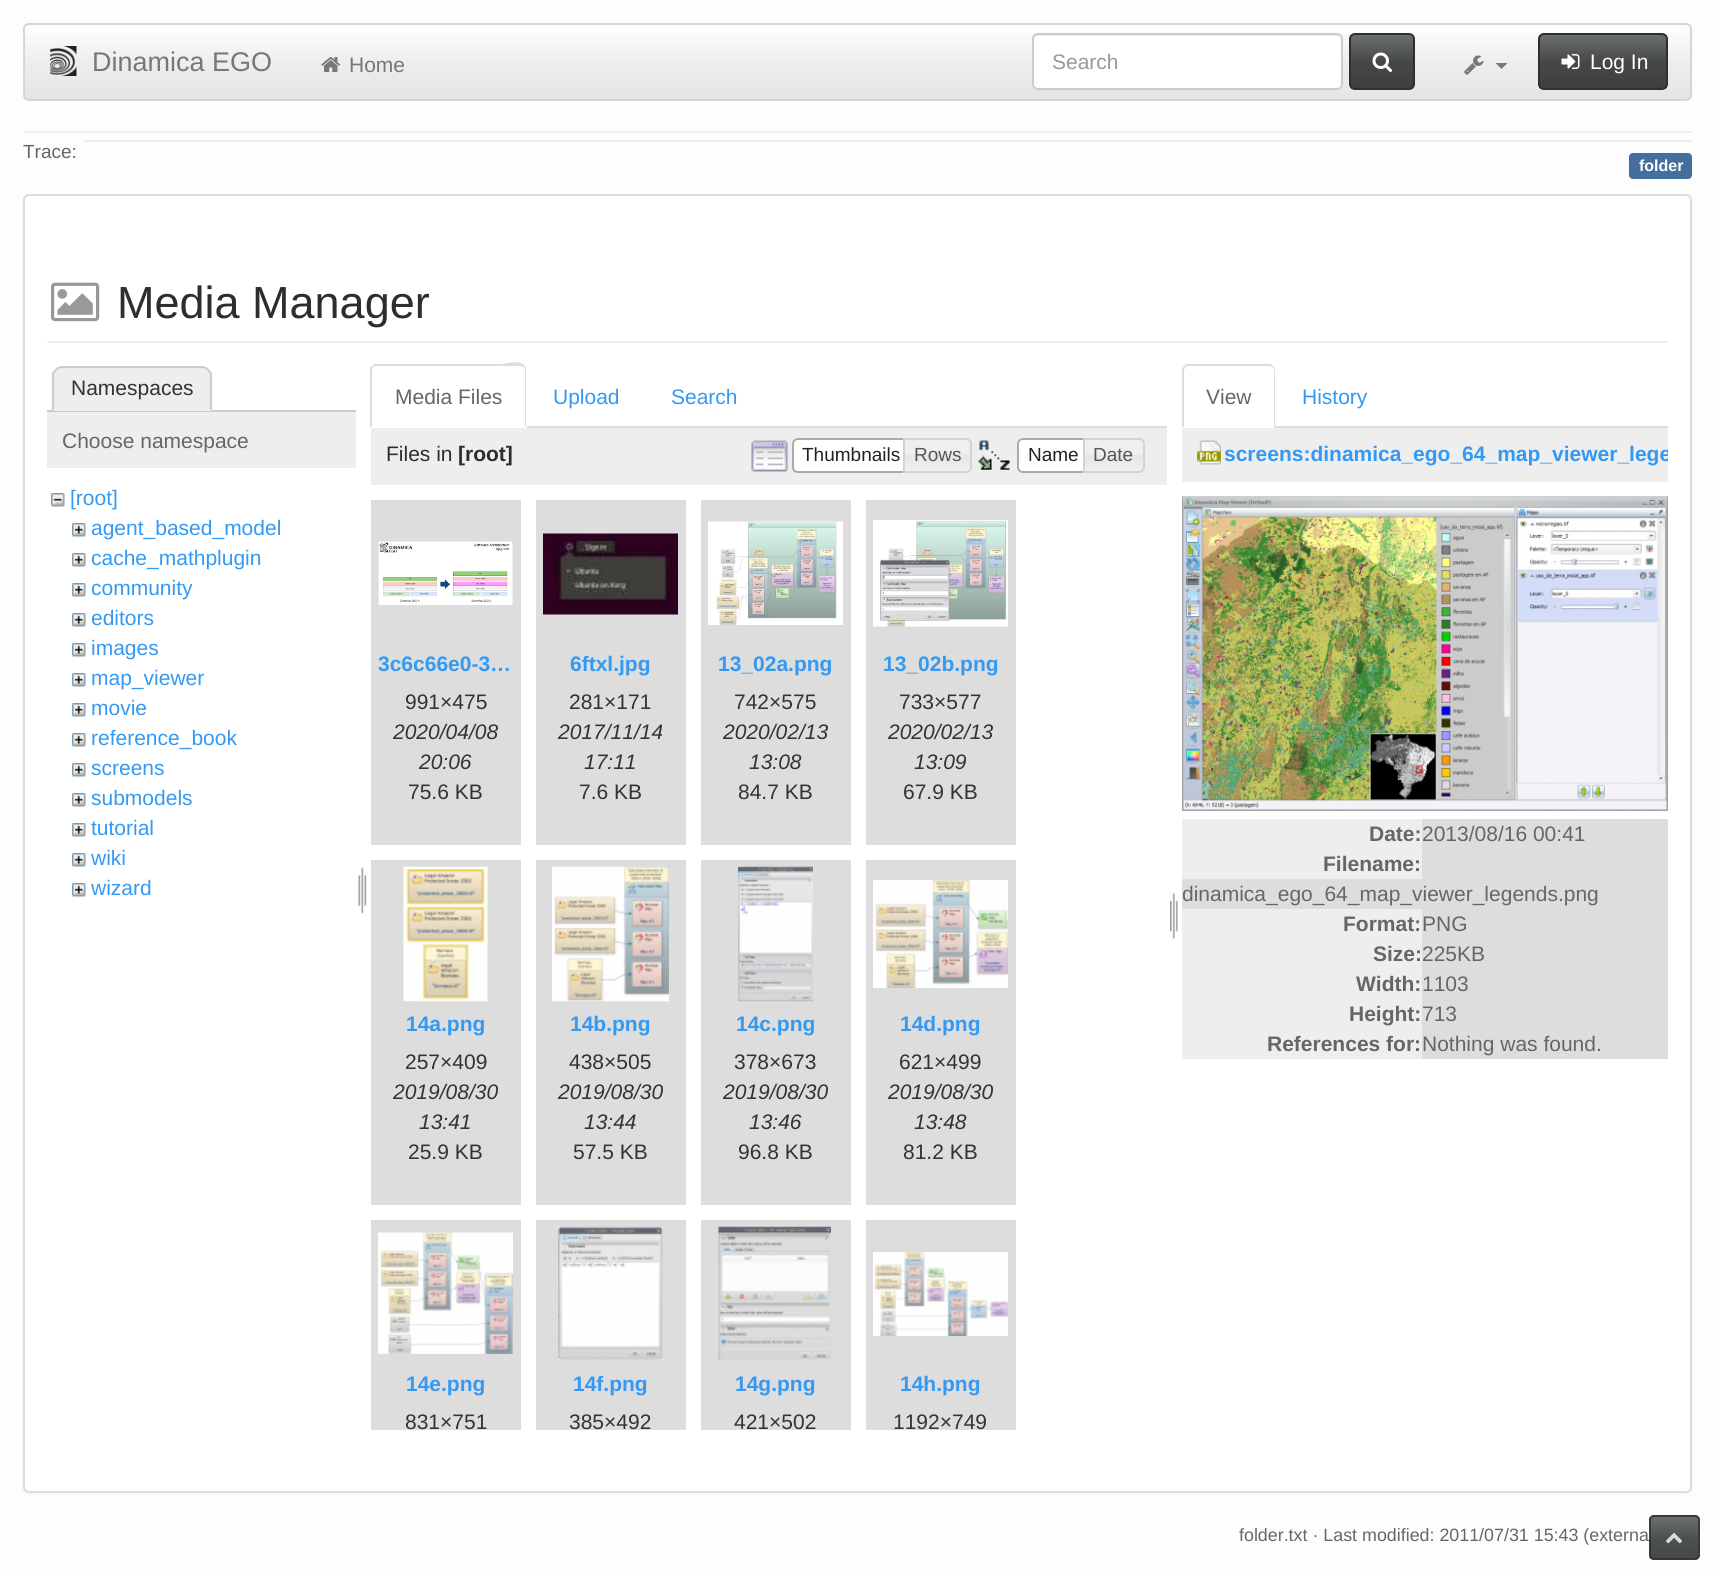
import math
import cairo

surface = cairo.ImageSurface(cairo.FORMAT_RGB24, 1714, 1575)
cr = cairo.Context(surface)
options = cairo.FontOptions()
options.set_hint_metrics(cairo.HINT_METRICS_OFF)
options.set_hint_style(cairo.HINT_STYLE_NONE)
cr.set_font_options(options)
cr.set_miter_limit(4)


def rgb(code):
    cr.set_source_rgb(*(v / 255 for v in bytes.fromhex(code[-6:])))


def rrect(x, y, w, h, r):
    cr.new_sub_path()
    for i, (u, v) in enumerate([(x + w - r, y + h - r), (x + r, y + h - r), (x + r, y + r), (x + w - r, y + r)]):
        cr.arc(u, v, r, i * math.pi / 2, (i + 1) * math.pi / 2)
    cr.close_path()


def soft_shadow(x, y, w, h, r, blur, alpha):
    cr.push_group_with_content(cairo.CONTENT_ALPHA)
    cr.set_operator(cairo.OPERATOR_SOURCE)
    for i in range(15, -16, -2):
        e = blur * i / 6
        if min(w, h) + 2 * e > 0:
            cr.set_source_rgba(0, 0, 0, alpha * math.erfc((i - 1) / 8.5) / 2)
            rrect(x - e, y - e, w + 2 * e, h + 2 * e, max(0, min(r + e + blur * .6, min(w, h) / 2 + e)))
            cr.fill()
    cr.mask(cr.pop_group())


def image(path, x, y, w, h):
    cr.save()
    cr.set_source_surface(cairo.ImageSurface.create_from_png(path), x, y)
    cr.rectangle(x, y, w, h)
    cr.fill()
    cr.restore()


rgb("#fdfdfd")
cr.paint()
cr.save()
rrect(23, 23, 1669, 78, 6)
cr.clip()
gradient = cairo.LinearGradient(857, 24, 857, 99)
gradient.add_color_stop_rgba(0, 1, 1, 1, 1)
gradient.add_color_stop_rgba(0.5, 0.933, 0.933, 0.933, 1)
gradient.add_color_stop_rgba(1, 0.894, 0.894, 0.894, 1)
cr.set_source(gradient)
cr.rectangle(24, 24, 1667, 75)
cr.fill()
cr.restore()
rrect(24, 24, 1667, 76, 5)
rgb("#d5d5d5")
cr.stroke()
image("img/1.png", 50, 46, 27, 30)
image("img/2.png", 321, 57, 20, 15)
rgb("#ffffff")
rrect(1032, 33, 311, 57, 6)
cr.fill()
rgb("#ececec")
cr.new_path()
cr.move_to(1038, 36)
cr.line_to(1336, 36)
cr.curve_to(1339, 36, 1341, 38, 1341, 40)
cr.curve_to(1341, 37, 1339, 35, 1336, 35)
cr.line_to(1039, 35)
cr.curve_to(1036, 35, 1034, 37, 1034, 40)
cr.curve_to(1034, 38, 1036, 36, 1038, 36)
cr.close_path()
cr.fill()
rrect(1033, 34, 309, 55, 5)
rgb("#cccccc")
cr.stroke()
cr.save()
rrect(1349, 33, 66, 57, 6)
cr.clip()
gradient = cairo.LinearGradient(1382, 34, 1382, 89)
gradient.add_color_stop_rgba(0, 0.427, 0.439, 0.439, 1)
gradient.add_color_stop_rgba(0.5, 0.278, 0.286, 0.286, 1)
gradient.add_color_stop_rgba(1, 0.239, 0.247, 0.247, 1)
cr.set_source(gradient)
cr.rectangle(1350, 35, 63, 54)
cr.fill()
cr.restore()
rrect(1350, 34, 64, 55, 5)
rgb("#2e2f2f")
cr.stroke()
image("img/3.png", 1372, 52, 20, 20)
image("img/4.png", 1464, 55, 20, 20)
rgb("#777777")
cr.new_path()
cr.move_to(1495.5, 63)
cr.line_to(1507.5, 63)
cr.line_to(1501.5, 69)
cr.close_path()
cr.fill()
cr.save()
rrect(1538, 33, 130, 57, 6)
cr.clip()
gradient = cairo.LinearGradient(1603, 34, 1603, 89)
gradient.add_color_stop_rgba(0, 0.427, 0.439, 0.439, 1)
gradient.add_color_stop_rgba(0.5, 0.278, 0.286, 0.286, 1)
gradient.add_color_stop_rgba(1, 0.239, 0.247, 0.247, 1)
cr.set_source(gradient)
cr.rectangle(1539, 35, 128, 54)
cr.fill()
cr.restore()
rrect(1539, 34, 128, 55, 5)
rgb("#2e2f2f")
cr.stroke()
image("img/5.png", 1561, 54, 19, 15)
rgb("#eeeeee")
cr.rectangle(23, 131, 1669, 2)
cr.fill()
cr.rectangle(84, 140, 1608, 2)
cr.fill()
rgb("#446e9b")
rrect(1629, 153, 63, 26, 4)
cr.fill()
rgb("#000000")
soft_shadow(23, 195, 1669, 1299, 6, 1, 0.05)
rgb("#ffffff")
rrect(24, 195, 1667, 1297, 5)
cr.fill_preserve()
rgb("#dddddd")
cr.stroke()
rgb("#eeeeee")
cr.rectangle(47, 341, 1621, 2)
cr.fill()
image("img/6.png", 51, 282, 49, 40)
rgb("#cccccc")
cr.rectangle(47, 410, 309, 2)
cr.fill()
rgb("#eeeeee")
cr.new_path()
cr.move_to(64, 366)
cr.line_to(201, 366)
cr.curve_to(207, 366, 212, 371, 212, 377)
cr.line_to(212, 411)
cr.line_to(53, 411)
cr.line_to(53, 377)
cr.curve_to(53, 371, 58, 366, 64, 366)
cr.close_path()
cr.fill()
rgb("#cccccc")
cr.new_path()
cr.move_to(63, 366)
cr.curve_to(60, 366, 57, 367, 55, 369)
cr.line_to(57, 370)
cr.curve_to(58, 369, 61, 368, 63, 368)
cr.line_to(201, 368)
cr.curve_to(203, 368, 206, 369, 207, 370)
cr.line_to(209, 369)
cr.curve_to(207, 367, 204, 366, 201, 366)
cr.close_path()
cr.fill()
cr.new_path()
cr.move_to(212, 373)
cr.line_to(212, 411)
cr.line_to(210, 410)
cr.line_to(210, 376)
cr.curve_to(210, 374, 209, 372, 207, 370)
cr.line_to(209, 369)
cr.close_path()
cr.fill()
rgb("#eeeeee")
cr.new_path()
cr.move_to(212, 411)
cr.line_to(210, 410)
cr.line_to(54, 410)
cr.line_to(52, 411)
cr.close_path()
cr.fill()
rgb("#cccccc")
cr.new_path()
cr.move_to(52, 411)
cr.line_to(52, 373)
cr.line_to(55, 369)
cr.line_to(57, 370)
cr.curve_to(55, 372, 54, 374, 54, 376)
cr.line_to(54, 410)
cr.close_path()
cr.fill()
rgb("#eeeeee")
cr.rectangle(47, 412, 309, 56)
cr.fill()
image("img/7.png", 51, 493, 14, 14)
image("img/8.png", 72, 523, 14, 14)
image("img/8.png", 72, 553, 14, 14)
image("img/8.png", 72, 583, 14, 14)
image("img/8.png", 72, 613, 14, 14)
image("img/8.png", 72, 643, 14, 14)
image("img/8.png", 72, 673, 14, 14)
image("img/8.png", 72, 703, 14, 14)
image("img/8.png", 72, 733, 14, 14)
image("img/8.png", 72, 763, 14, 14)
image("img/8.png", 72, 793, 14, 14)
image("img/8.png", 72, 823, 14, 14)
image("img/8.png", 72, 853, 14, 14)
image("img/8.png", 72, 883, 14, 14)
image("img/9.png", 358, 866, 9, 48)
rgb("#dddddd")
cr.rectangle(527, 426, 640, 2)
cr.fill()
cr.new_path()
cr.move_to(376, 366)
cr.line_to(373, 367)
cr.line_to(372, 366)
cr.line_to(374, 364)
cr.line_to(498, 364)
cr.curve_to(507, 364, 519, 359, 525, 366)
cr.line_to(524, 367)
cr.curve_to(523, 367, 522, 366, 520, 366)
cr.close_path()
cr.fill()
cr.new_path()
cr.move_to(525, 366)
cr.curve_to(526, 367, 526, 369, 526, 370)
cr.line_to(526, 427)
cr.line_to(525, 426)
cr.line_to(525, 369)
cr.line_to(524, 367)
cr.close_path()
cr.fill()
cr.new_path()
cr.move_to(370, 428)
cr.line_to(370, 368)
cr.line_to(372, 366)
cr.line_to(373, 367)
cr.line_to(372, 370)
cr.line_to(372, 426)
cr.close_path()
cr.fill()
rgb("#eeeeee")
cr.rectangle(371, 428, 796, 57)
cr.fill()
image("img/10.png", 751, 440, 37, 32)
rgb("#ffffff")
cr.new_path()
cr.move_to(798, 438)
cr.line_to(911, 438)
cr.line_to(911, 473)
cr.line_to(798, 473)
cr.curve_to(794.5, 473, 792, 470.5, 792, 467)
cr.line_to(792, 444)
cr.curve_to(792, 440.5, 794.5, 438, 798, 438)
cr.close_path()
cr.fill()
image("img/11.png", 792, 437, 118, 5)
cr.new_path()
cr.move_to(798, 439)
cr.line_to(910, 439)
cr.line_to(910, 472)
cr.line_to(798, 472)
cr.curve_to(795, 472, 793, 470, 793, 467)
cr.line_to(793, 444)
cr.curve_to(793, 441, 795, 439, 798, 439)
cr.close_path()
rgb("#aaaaaa")
cr.stroke()
image("img/12.png", 905, 438, 67, 33)
cr.new_path()
cr.move_to(904, 439)
cr.line_to(966, 439)
cr.curve_to(969, 439, 971, 441, 971, 444)
cr.line_to(971, 467)
cr.curve_to(971, 470, 969, 472, 966, 472)
cr.line_to(904, 472)
cr.close_path()
rgb("#d3d3d3")
cr.stroke()
image("img/13.png", 977, 440, 33, 30)
rgb("#ffffff")
cr.new_path()
cr.move_to(1023, 438)
cr.line_to(1091, 438)
cr.line_to(1091, 473)
cr.line_to(1023, 473)
cr.curve_to(1019.5, 473, 1017, 470.5, 1017, 467)
cr.line_to(1017, 444)
cr.curve_to(1017, 440.5, 1019.5, 438, 1023, 438)
cr.close_path()
cr.fill()
image("img/14.png", 1017, 437, 73, 5)
cr.new_path()
cr.move_to(1023, 439)
cr.line_to(1090, 439)
cr.line_to(1090, 472)
cr.line_to(1023, 472)
cr.curve_to(1020, 472, 1018, 470, 1018, 467)
cr.line_to(1018, 444)
cr.curve_to(1018, 441, 1020, 439, 1023, 439)
cr.close_path()
rgb("#aaaaaa")
cr.stroke()
image("img/15.png", 1085, 438, 59, 33)
cr.new_path()
cr.move_to(1084, 439)
cr.line_to(1139, 439)
cr.curve_to(1142, 439, 1144, 441, 1144, 444)
cr.line_to(1144, 467)
cr.curve_to(1144, 470, 1142, 472, 1139, 472)
cr.line_to(1084, 472)
cr.close_path()
rgb("#d3d3d3")
cr.stroke()
rgb("#dddddd")
cr.rectangle(371, 500, 150, 345)
cr.fill()
image("img/16.png", 378, 541, 135, 65)
cr.rectangle(536, 500, 150, 345)
cr.fill()
image("img/17.png", 543, 533, 135, 82)
cr.rectangle(701, 500, 150, 345)
cr.fill()
image("img/18.png", 708, 521, 135, 104)
cr.rectangle(866, 500, 150, 345)
cr.fill()
image("img/19.png", 873, 520, 135, 107)
cr.rectangle(371, 860, 150, 345)
cr.fill()
image("img/20.png", 403, 866, 85, 136)
cr.rectangle(536, 860, 150, 345)
cr.fill()
image("img/21.png", 552, 866, 117, 136)
cr.rectangle(701, 860, 150, 345)
cr.fill()
image("img/22.png", 738, 866, 75, 136)
cr.rectangle(866, 860, 150, 345)
cr.fill()
image("img/23.png", 873, 880, 135, 108)
cr.rectangle(371, 1220, 150, 210)
cr.fill()
image("img/24.png", 378, 1232, 135, 122)
cr.rectangle(536, 1220, 150, 210)
cr.fill()
image("img/25.png", 558, 1226, 105, 134)
cr.rectangle(701, 1220, 150, 210)
cr.fill()
image("img/26.png", 718, 1226, 113, 134)
cr.rectangle(866, 1220, 150, 210)
cr.fill()
image("img/27.png", 873, 1252, 135, 84)
image("img/28.png", 1170, 892, 8, 47)
cr.rectangle(1275, 426, 393, 2)
cr.fill()
cr.new_path()
cr.move_to(1188, 366)
cr.curve_to(1187, 366, 1186, 367, 1185, 368)
cr.line_to(1184, 366)
cr.line_to(1186, 364)
cr.line_to(1271, 364)
cr.line_to(1273, 366)
cr.line_to(1272, 367)
cr.line_to(1269, 366)
cr.close_path()
cr.fill()
cr.new_path()
cr.move_to(1275, 428)
cr.line_to(1275, 370)
cr.curve_to(1275, 369, 1274, 367, 1273, 366)
cr.line_to(1272, 367)
cr.line_to(1274, 370)
cr.line_to(1274, 426)
cr.close_path()
cr.fill()
cr.new_path()
cr.move_to(1182, 428)
cr.line_to(1184, 426)
cr.line_to(1184, 370)
cr.line_to(1185, 368)
cr.line_to(1184, 366)
cr.curve_to(1183, 367, 1182, 369, 1182, 370)
cr.close_path()
cr.fill()
rgb("#eeeeee")
cr.rectangle(1182, 428, 486, 54)
cr.fill()
image("img/29.png", 1197, 440, 24, 25)
image("img/30.png", 1182, 496, 486, 315)
for x, y, w, h, color in [
    (1182, 849, 486, 60, "#dddddd"),
    (1182, 819, 240, 60, "#eeeeee"),
    (1422, 819, 246, 30, "#dddddd"),
    (1182, 909, 240, 150, "#eeeeee"),
    (1422, 909, 246, 150, "#dddddd"),
]:
    rgb(color)
    cr.rectangle(x, y, w, h)
    cr.fill()
cr.set_source_rgba(0.278, 0.286, 0.286, 0.8)
rrect(1649, 1515, 51, 45, 5)
cr.fill()
gradient = cairo.LinearGradient(1674, 1517, 1674, 1559)
gradient.add_color_stop_rgba(0, 0.427, 0.439, 0.439, 0.8)
gradient.add_color_stop_rgba(0.5, 0.278, 0.286, 0.286, 0.8)
gradient.add_color_stop_rgba(1, 0.239, 0.247, 0.247, 0.8)
cr.set_source(gradient)
cr.rectangle(1650, 1520, 48, 39)
cr.fill()
rrect(1650, 1516, 49, 43, 4)
cr.set_source_rgba(0.18, 0.184, 0.184, 0.8)
cr.stroke()
image("img/31.png", 1666, 1533, 16, 11)
cr.select_font_face("Liberation Sans")
cr.set_font_size(27)
rgb("#777777")
cr.move_to(92, 71)
cr.show_text("Dinamica EGO")
cr.set_font_size(21)
cr.move_to(349, 72)
cr.show_text("Home")
rgb("#999999")
cr.move_to(1052, 69)
cr.show_text("Search")
rgb("#ffffff")
cr.move_to(1590, 69)
cr.show_text("Log In")
cr.set_font_size(19)
rgb("#666666")
cr.move_to(23, 158)
cr.show_text("Trace:")
cr.select_font_face("Liberation Sans", cairo.FONT_SLANT_NORMAL, cairo.FONT_WEIGHT_BOLD)
cr.set_font_size(16)
rgb("#ffffff")
cr.move_to(1639, 171)
cr.show_text("folder")
cr.select_font_face("Liberation Sans")
cr.set_font_size(45)
rgb("#2d2d2d")
cr.move_to(117, 318)
cr.show_text("Media Manager")
cr.set_font_size(21)
rgb("#333333")
cr.move_to(71, 395)
cr.show_text("Namespaces")
rgb("#666666")
cr.move_to(62, 448)
cr.show_text("Choose namespace")
rgb("#3399f3")
for x, y, s in [
    (70, 505, "[root]"),
    (91, 535, "agent_based_model"),
    (91, 565, "cache_mathplugin"),
    (91, 595, "community"),
    (91, 625, "editors"),
    (91, 655, "images"),
    (91, 685, "map_viewer"),
    (91, 715, "movie"),
    (91, 745, "reference_book"),
    (91, 775, "screens"),
    (91, 805, "submodels"),
    (91, 835, "tutorial"),
    (91, 865, "wiki"),
    (91, 895, "wizard"),
]:
    cr.move_to(x, y)
    cr.show_text(s)
rgb("#666666")
cr.move_to(395, 404)
cr.show_text("Media Files")
rgb("#3399f3")
cr.move_to(553, 404)
cr.show_text("Upload")
cr.move_to(671, 404)
cr.show_text("Search")
rgb("#2d2d2d")
cr.move_to(386, 461)
cr.show_text("Files in")
cr.select_font_face("Liberation Sans", cairo.FONT_SLANT_NORMAL, cairo.FONT_WEIGHT_BOLD)
cr.move_to(458, 461)
cr.show_text("[root]")
cr.select_font_face("Liberation Sans")
cr.set_font_size(19)
rgb("#212121")
cr.move_to(802, 461)
cr.show_text("Thumbnails")
rgb("#555555")
cr.move_to(914, 461)
cr.show_text("Rows")
rgb("#212121")
cr.move_to(1028, 461)
cr.show_text("Name")
rgb("#555555")
cr.move_to(1093, 461)
cr.show_text("Date")
cr.select_font_face("Liberation Sans", cairo.FONT_SLANT_NORMAL, cairo.FONT_WEIGHT_BOLD)
cr.set_font_size(21)
rgb("#3399f3")
cr.move_to(378, 671)
cr.show_text("3c6c66e0-3…")
cr.select_font_face("Liberation Sans")
rgb("#333333")
cr.move_to(405, 709)
cr.show_text("991×475")
cr.select_font_face("Liberation Sans", cairo.FONT_SLANT_ITALIC)
cr.move_to(393, 739)
cr.show_text("2020/04/08")
cr.move_to(419, 769)
cr.show_text("20:06")
cr.select_font_face("Liberation Sans")
cr.move_to(408, 799)
cr.show_text("75.6 KB")
cr.select_font_face("Liberation Sans", cairo.FONT_SLANT_NORMAL, cairo.FONT_WEIGHT_BOLD)
rgb("#3399f3")
cr.move_to(570, 671)
cr.show_text("6ftxl.jpg")
cr.select_font_face("Liberation Sans")
rgb("#333333")
cr.move_to(569, 709)
cr.show_text("281×171")
cr.select_font_face("Liberation Sans", cairo.FONT_SLANT_ITALIC)
cr.move_to(558, 739)
cr.show_text("2017/11/14")
cr.move_to(584, 769)
cr.show_text("17:11")
cr.select_font_face("Liberation Sans")
cr.move_to(579, 799)
cr.show_text("7.6 KB")
cr.select_font_face("Liberation Sans", cairo.FONT_SLANT_NORMAL, cairo.FONT_WEIGHT_BOLD)
rgb("#3399f3")
cr.move_to(718, 671)
cr.show_text("13_02a.png")
cr.select_font_face("Liberation Sans")
rgb("#333333")
cr.move_to(734, 709)
cr.show_text("742×575")
cr.select_font_face("Liberation Sans", cairo.FONT_SLANT_ITALIC)
cr.move_to(723, 739)
cr.show_text("2020/02/13")
cr.move_to(749, 769)
cr.show_text("13:08")
cr.select_font_face("Liberation Sans")
cr.move_to(738, 799)
cr.show_text("84.7 KB")
cr.select_font_face("Liberation Sans", cairo.FONT_SLANT_NORMAL, cairo.FONT_WEIGHT_BOLD)
rgb("#3399f3")
cr.move_to(883, 671)
cr.show_text("13_02b.png")
cr.select_font_face("Liberation Sans")
rgb("#333333")
cr.move_to(899, 709)
cr.show_text("733×577")
cr.select_font_face("Liberation Sans", cairo.FONT_SLANT_ITALIC)
cr.move_to(888, 739)
cr.show_text("2020/02/13")
cr.move_to(914, 769)
cr.show_text("13:09")
cr.select_font_face("Liberation Sans")
cr.move_to(903, 799)
cr.show_text("67.9 KB")
cr.select_font_face("Liberation Sans", cairo.FONT_SLANT_NORMAL, cairo.FONT_WEIGHT_BOLD)
rgb("#3399f3")
cr.move_to(406, 1031)
cr.show_text("14a.png")
cr.select_font_face("Liberation Sans")
rgb("#333333")
cr.move_to(405, 1069)
cr.show_text("257×409")
cr.select_font_face("Liberation Sans", cairo.FONT_SLANT_ITALIC)
cr.move_to(393, 1099)
cr.show_text("2019/08/30")
cr.move_to(419, 1129)
cr.show_text("13:41")
cr.select_font_face("Liberation Sans")
cr.move_to(408, 1159)
cr.show_text("25.9 KB")
cr.select_font_face("Liberation Sans", cairo.FONT_SLANT_NORMAL, cairo.FONT_WEIGHT_BOLD)
rgb("#3399f3")
cr.move_to(570, 1031)
cr.show_text("14b.png")
cr.select_font_face("Liberation Sans")
rgb("#333333")
cr.move_to(569, 1069)
cr.show_text("438×505")
cr.select_font_face("Liberation Sans", cairo.FONT_SLANT_ITALIC)
cr.move_to(558, 1099)
cr.show_text("2019/08/30")
cr.move_to(584, 1129)
cr.show_text("13:44")
cr.select_font_face("Liberation Sans")
cr.move_to(573, 1159)
cr.show_text("57.5 KB")
cr.select_font_face("Liberation Sans", cairo.FONT_SLANT_NORMAL, cairo.FONT_WEIGHT_BOLD)
rgb("#3399f3")
cr.move_to(736, 1031)
cr.show_text("14c.png")
cr.select_font_face("Liberation Sans")
rgb("#333333")
cr.move_to(734, 1069)
cr.show_text("378×673")
cr.select_font_face("Liberation Sans", cairo.FONT_SLANT_ITALIC)
cr.move_to(723, 1099)
cr.show_text("2019/08/30")
cr.move_to(749, 1129)
cr.show_text("13:46")
cr.select_font_face("Liberation Sans")
cr.move_to(738, 1159)
cr.show_text("96.8 KB")
cr.select_font_face("Liberation Sans", cairo.FONT_SLANT_NORMAL, cairo.FONT_WEIGHT_BOLD)
rgb("#3399f3")
cr.move_to(900, 1031)
cr.show_text("14d.png")
cr.select_font_face("Liberation Sans")
rgb("#333333")
cr.move_to(899, 1069)
cr.show_text("621×499")
cr.select_font_face("Liberation Sans", cairo.FONT_SLANT_ITALIC)
cr.move_to(888, 1099)
cr.show_text("2019/08/30")
cr.move_to(914, 1129)
cr.show_text("13:48")
cr.select_font_face("Liberation Sans")
cr.move_to(903, 1159)
cr.show_text("81.2 KB")
cr.select_font_face("Liberation Sans", cairo.FONT_SLANT_NORMAL, cairo.FONT_WEIGHT_BOLD)
rgb("#3399f3")
cr.move_to(406, 1391)
cr.show_text("14e.png")
cr.select_font_face("Liberation Sans")
rgb("#333333")
cr.move_to(405, 1429)
cr.show_text("831×751")
cr.select_font_face("Liberation Sans", cairo.FONT_SLANT_NORMAL, cairo.FONT_WEIGHT_BOLD)
rgb("#3399f3")
cr.move_to(573, 1391)
cr.show_text("14f.png")
cr.select_font_face("Liberation Sans")
rgb("#333333")
cr.move_to(569, 1429)
cr.show_text("385×492")
cr.select_font_face("Liberation Sans", cairo.FONT_SLANT_NORMAL, cairo.FONT_WEIGHT_BOLD)
rgb("#3399f3")
cr.move_to(735, 1391)
cr.show_text("14g.png")
cr.select_font_face("Liberation Sans")
rgb("#333333")
cr.move_to(734, 1429)
cr.show_text("421×502")
cr.select_font_face("Liberation Sans", cairo.FONT_SLANT_NORMAL, cairo.FONT_WEIGHT_BOLD)
rgb("#3399f3")
cr.move_to(900, 1391)
cr.show_text("14h.png")
cr.select_font_face("Liberation Sans")
rgb("#333333")
cr.move_to(893, 1429)
cr.show_text("1192×749")
rgb("#666666")
cr.move_to(1206, 404)
cr.show_text("View")
rgb("#3399f3")
cr.move_to(1302, 404)
cr.show_text("History")
cr.save()
cr.rectangle(1182, 428, 486, 54)
cr.clip()
cr.select_font_face("Liberation Sans", cairo.FONT_SLANT_NORMAL, cairo.FONT_WEIGHT_BOLD)
cr.move_to(1224, 461)
cr.show_text("screens:dinamica_ego_64_map_viewer_lege")
cr.restore()
cr.select_font_face("Liberation Sans", cairo.FONT_SLANT_NORMAL, cairo.FONT_WEIGHT_BOLD)
rgb("#666666")
cr.move_to(1369, 841)
cr.show_text("Date:")
cr.select_font_face("Liberation Sans")
cr.move_to(1422, 841)
cr.show_text("2013/08/16 00:41")
cr.select_font_face("Liberation Sans", cairo.FONT_SLANT_NORMAL, cairo.FONT_WEIGHT_BOLD)
cr.move_to(1323, 871)
cr.show_text("Filename:")
cr.select_font_face("Liberation Sans")
cr.move_to(1182, 901)
cr.show_text("dinamica_ego_64_map_viewer_legends.png")
cr.select_font_face("Liberation Sans", cairo.FONT_SLANT_NORMAL, cairo.FONT_WEIGHT_BOLD)
cr.move_to(1343, 931)
cr.show_text("Format:")
cr.select_font_face("Liberation Sans")
cr.move_to(1422, 931)
cr.show_text("PNG")
cr.select_font_face("Liberation Sans", cairo.FONT_SLANT_NORMAL, cairo.FONT_WEIGHT_BOLD)
cr.move_to(1373, 961)
cr.show_text("Size:")
cr.select_font_face("Liberation Sans")
cr.move_to(1422, 961)
cr.show_text("225KB")
cr.select_font_face("Liberation Sans", cairo.FONT_SLANT_NORMAL, cairo.FONT_WEIGHT_BOLD)
cr.move_to(1356, 991)
cr.show_text("Width:")
cr.select_font_face("Liberation Sans")
cr.move_to(1422, 991)
cr.show_text("1103")
cr.select_font_face("Liberation Sans", cairo.FONT_SLANT_NORMAL, cairo.FONT_WEIGHT_BOLD)
cr.move_to(1349, 1021)
cr.show_text("Height:")
cr.select_font_face("Liberation Sans")
cr.move_to(1422, 1021)
cr.show_text("713")
cr.select_font_face("Liberation Sans", cairo.FONT_SLANT_NORMAL, cairo.FONT_WEIGHT_BOLD)
cr.move_to(1267, 1051)
cr.show_text("References for:")
cr.select_font_face("Liberation Sans")
cr.move_to(1422, 1051)
cr.show_text("Nothing was found.")
cr.set_font_size(17.85)
cr.move_to(1239, 1541)
cr.show_text("folder.txt · Last modified: 2011/07/31 15:43 (externa")
surface.write_to_png("page.png")
